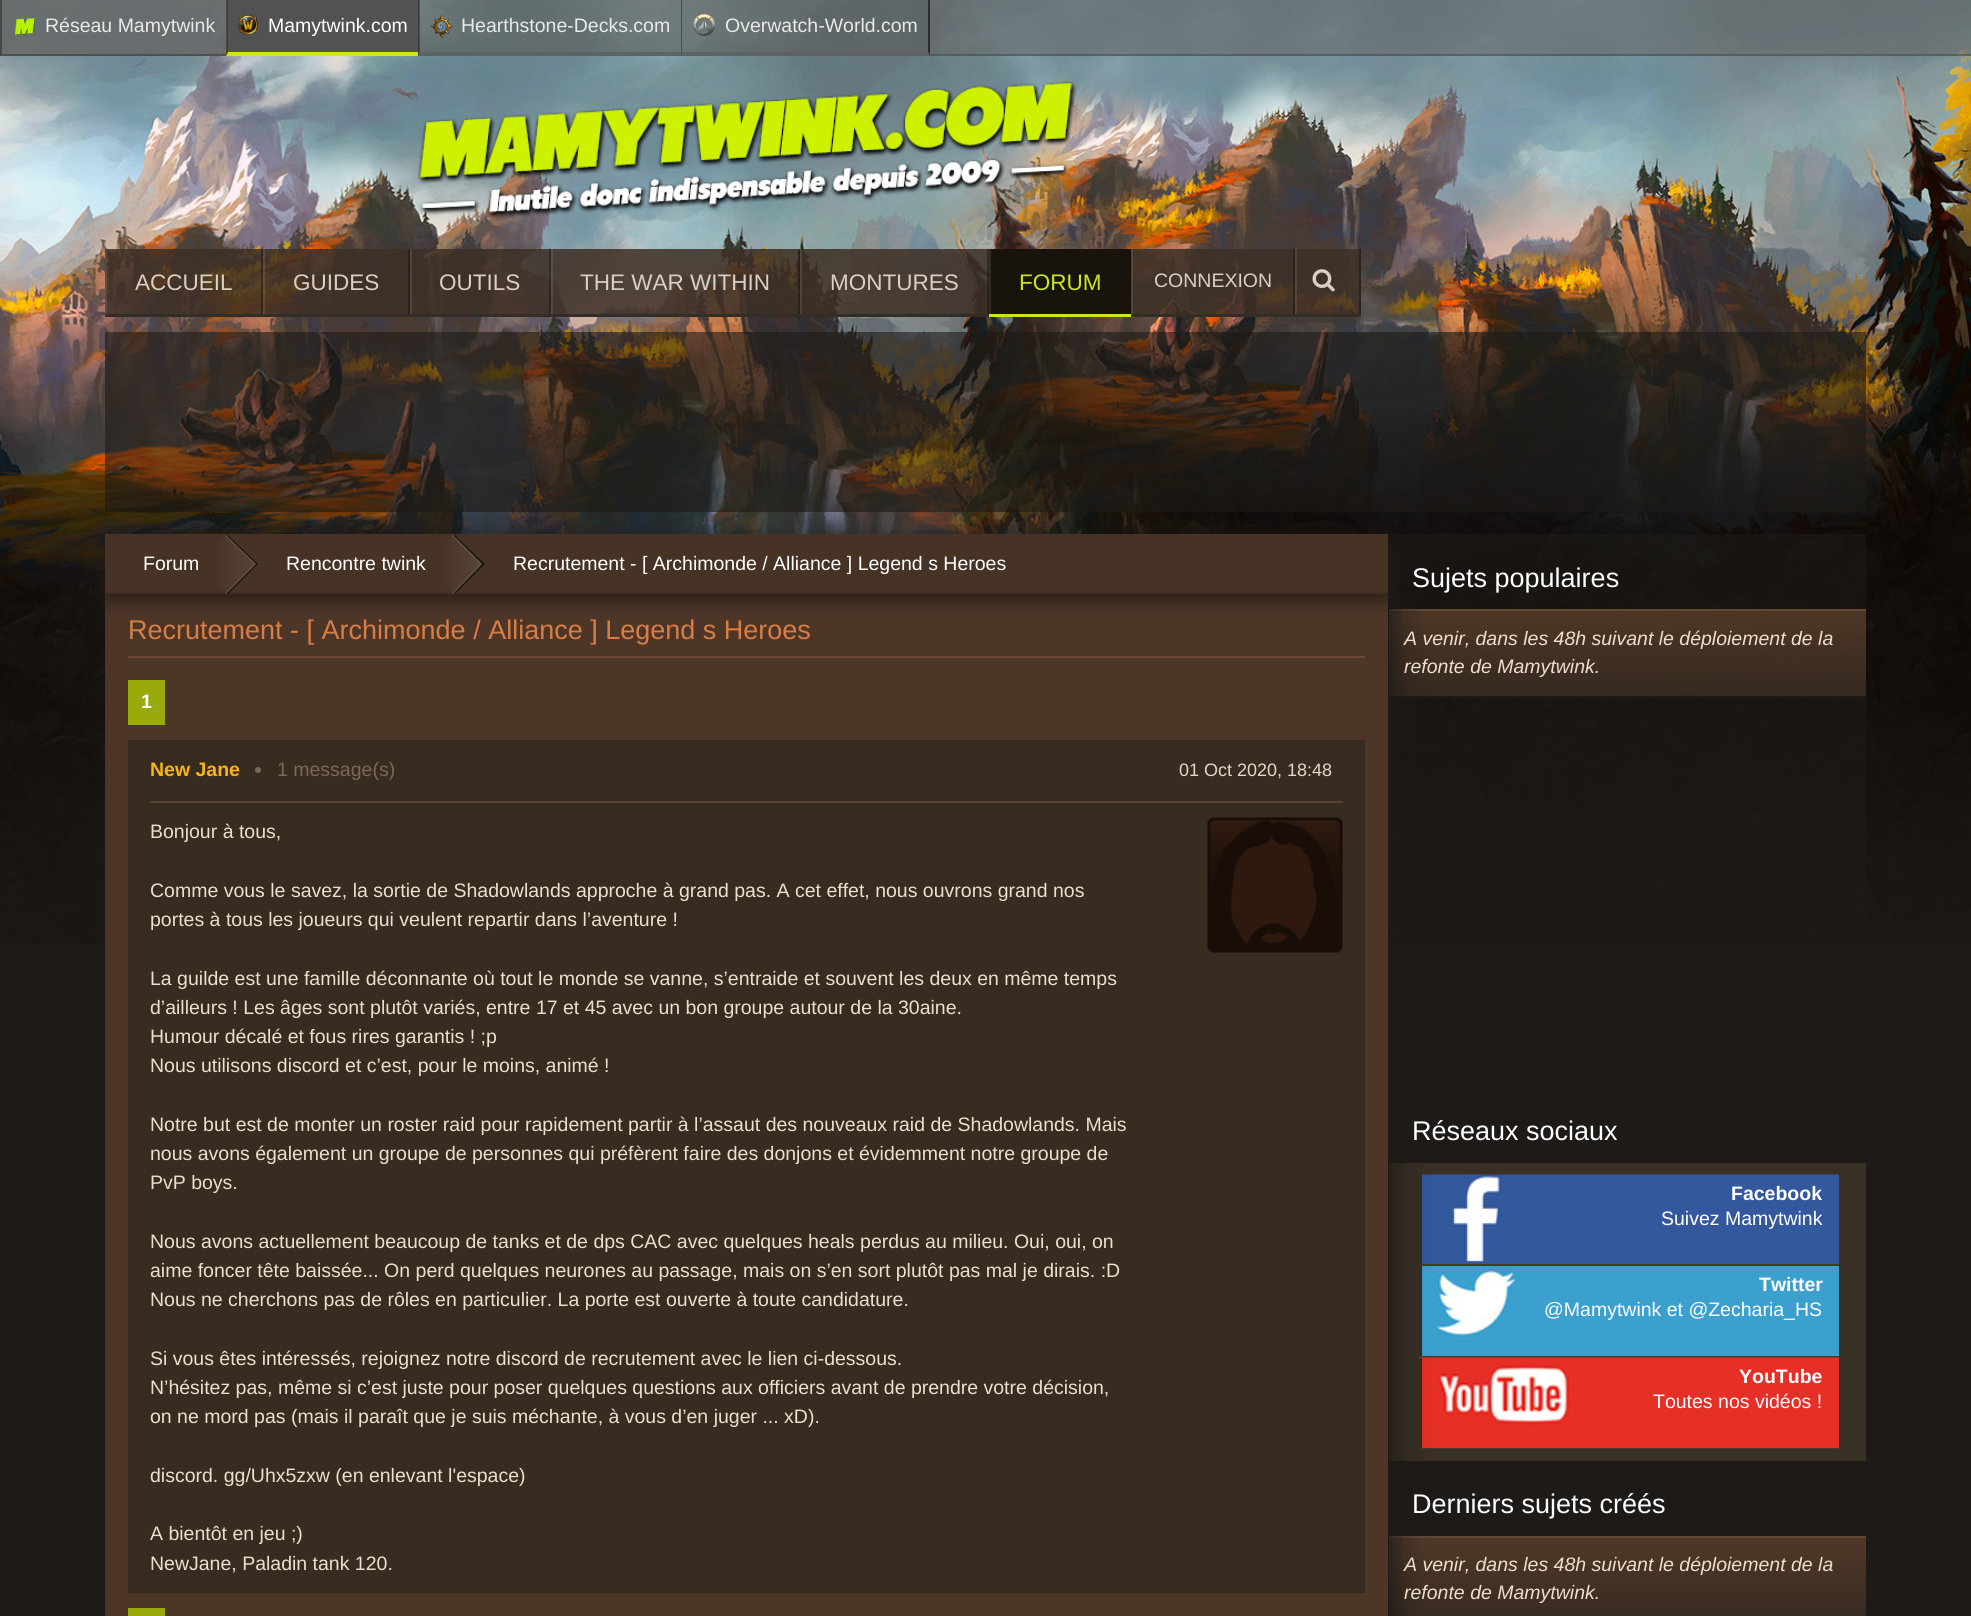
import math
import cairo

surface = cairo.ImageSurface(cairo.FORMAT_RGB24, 1971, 1616)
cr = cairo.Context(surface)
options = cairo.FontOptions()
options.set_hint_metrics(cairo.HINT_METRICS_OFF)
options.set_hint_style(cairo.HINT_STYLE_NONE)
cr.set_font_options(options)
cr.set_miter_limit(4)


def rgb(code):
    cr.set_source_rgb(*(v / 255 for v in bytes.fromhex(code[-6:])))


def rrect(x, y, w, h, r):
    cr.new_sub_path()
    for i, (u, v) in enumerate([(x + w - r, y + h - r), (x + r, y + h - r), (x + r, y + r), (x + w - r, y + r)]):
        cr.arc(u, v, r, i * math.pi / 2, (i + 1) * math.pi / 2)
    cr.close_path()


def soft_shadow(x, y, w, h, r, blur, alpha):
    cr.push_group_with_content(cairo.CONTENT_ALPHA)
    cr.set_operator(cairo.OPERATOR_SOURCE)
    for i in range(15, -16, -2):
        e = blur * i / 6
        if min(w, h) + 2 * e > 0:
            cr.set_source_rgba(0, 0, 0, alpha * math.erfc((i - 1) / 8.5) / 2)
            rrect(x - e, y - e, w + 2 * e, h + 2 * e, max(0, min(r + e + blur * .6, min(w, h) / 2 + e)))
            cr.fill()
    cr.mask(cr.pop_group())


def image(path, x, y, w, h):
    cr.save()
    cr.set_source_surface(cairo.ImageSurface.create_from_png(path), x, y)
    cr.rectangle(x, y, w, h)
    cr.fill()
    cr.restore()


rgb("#1e1a17")
cr.paint()
image("img/1.png", 0, 0, 1971, 944)
cr.set_source_rgba(0.404, 0.404, 0.404, 0.56)
cr.rectangle(0, 0, 1971, 56)
cr.fill()
cr.set_source_rgba(0, 0, 0, 0.2)
cr.rectangle(0, 54, 1971, 2)
cr.fill()
cr.set_source_rgba(0.404, 0.404, 0.404, 0.56)
cr.rectangle(0, 0, 227, 56)
cr.fill()
rgb("#4d5051")
cr.new_path()
cr.move_to(226, 56)
cr.line_to(0, 56)
cr.line_to(2, 54)
cr.line_to(226, 54)
cr.close_path()
cr.fill()
cr.set_source_rgba(0.184, 0.169, 0.169, 0.57)
cr.new_path()
cr.move_to(0, 56)
cr.line_to(0, 0)
cr.line_to(2, 0)
cr.line_to(2, 54)
cr.close_path()
cr.fill()
image("img/2.png", 15, 18, 20, 17)
rgb("#525252")
cr.rectangle(227, 0, 192, 56)
cr.fill()
rgb("#cce618")
cr.new_path()
cr.move_to(418, 56)
cr.line_to(226, 56)
cr.line_to(228, 52)
cr.line_to(418, 52)
cr.close_path()
cr.fill()
cr.set_source_rgba(0.184, 0.169, 0.169, 0.57)
cr.new_path()
cr.move_to(226, 56)
cr.line_to(226, 0)
cr.line_to(228, 0)
cr.line_to(228, 52)
cr.close_path()
cr.fill()
image("img/3.png", 238, 15, 20, 20)
cr.set_source_rgba(0.267, 0.255, 0.243, 0.16)
cr.rectangle(419, 0, 262, 54)
cr.fill()
rgb("#5e6262")
cr.new_path()
cr.move_to(681, 56)
cr.line_to(418, 56)
cr.line_to(420, 52)
cr.line_to(681, 52)
cr.close_path()
cr.fill()
cr.set_source_rgba(0.184, 0.169, 0.169, 0.57)
cr.new_path()
cr.move_to(418, 56)
cr.line_to(418, 0)
cr.line_to(420, 0)
cr.line_to(420, 52)
cr.close_path()
cr.fill()
image("img/4.png", 430, 15, 23, 23)
cr.set_source_rgba(0.267, 0.255, 0.243, 0.16)
cr.rectangle(681, 0, 249, 56)
cr.fill()
rgb("#2f2b2b")
cr.new_path()
cr.move_to(930, 0)
cr.line_to(930, 56)
cr.line_to(928, 52)
cr.line_to(928, 0)
cr.close_path()
cr.fill()
rgb("#5e6262")
cr.new_path()
cr.move_to(930, 56)
cr.line_to(681, 56)
cr.line_to(682, 52)
cr.line_to(928, 52)
cr.close_path()
cr.fill()
cr.set_source_rgba(0.184, 0.169, 0.169, 0.57)
cr.new_path()
cr.move_to(681, 56)
cr.line_to(681, 0)
cr.line_to(682, 0)
cr.line_to(682, 52)
cr.close_path()
cr.fill()
image("img/5.png", 693, 13, 23, 23)
image("img/6.png", 417, 81, 660, 137)
cr.set_source_rgba(0.243, 0.188, 0.149, 0.85)
cr.rectangle(105, 249, 158, 65)
cr.fill()
cr.set_source_rgba(0, 0, 0, 0.3)
cr.rectangle(261, 249, 2, 65)
cr.fill()
cr.set_source_rgba(1, 1, 1, 0.1)
cr.rectangle(105, 249, 2, 65)
cr.fill()
rgb("#332d28")
cr.rectangle(105, 314, 884, 3)
cr.fill()
cr.set_source_rgba(0.243, 0.188, 0.149, 0.85)
cr.rectangle(263, 249, 147, 65)
cr.fill()
cr.set_source_rgba(0, 0, 0, 0.3)
cr.rectangle(408, 249, 2, 65)
cr.fill()
cr.set_source_rgba(1, 1, 1, 0.1)
cr.rectangle(263, 249, 2, 65)
cr.fill()
cr.set_source_rgba(0.243, 0.188, 0.149, 0.85)
cr.rectangle(410, 249, 141, 65)
cr.fill()
cr.set_source_rgba(0, 0, 0, 0.3)
cr.rectangle(549, 249, 2, 65)
cr.fill()
cr.set_source_rgba(1, 1, 1, 0.1)
cr.rectangle(410, 249, 2, 65)
cr.fill()
cr.set_source_rgba(0.243, 0.188, 0.149, 0.85)
cr.rectangle(551, 249, 249, 65)
cr.fill()
cr.set_source_rgba(0, 0, 0, 0.3)
cr.rectangle(798, 249, 2, 65)
cr.fill()
cr.set_source_rgba(1, 1, 1, 0.1)
cr.rectangle(551, 249, 2, 65)
cr.fill()
cr.set_source_rgba(0.243, 0.188, 0.149, 0.85)
cr.rectangle(800, 249, 189, 65)
cr.fill()
cr.set_source_rgba(0, 0, 0, 0.3)
cr.rectangle(987, 249, 2, 65)
cr.fill()
cr.set_source_rgba(1, 1, 1, 0.1)
cr.rectangle(800, 249, 2, 65)
cr.fill()
rgb("#19130d")
cr.rectangle(991, 249, 140, 65)
cr.fill()
cr.set_source_rgba(0, 0, 0, 0.3)
cr.rectangle(1130, 249, 2, 65)
cr.fill()
rgb("#302b25")
cr.rectangle(989, 249, 2, 65)
cr.fill()
rgb("#cce618")
cr.rectangle(989, 314, 142, 3)
cr.fill()
cr.set_source_rgba(0.243, 0.188, 0.149, 0.85)
cr.rectangle(1295, 249, 66, 65)
cr.fill()
cr.set_source_rgba(0, 0, 0, 0.3)
cr.rectangle(1359, 249, 2, 65)
cr.fill()
cr.set_source_rgba(1, 1, 1, 0.1)
cr.rectangle(1295, 249, 2, 65)
cr.fill()
rgb("#332d28")
cr.rectangle(1131, 314, 230, 3)
cr.fill()
image("img/7.png", 1312, 269, 23, 23)
cr.set_source_rgba(0.243, 0.188, 0.149, 0.85)
cr.rectangle(1131, 249, 164, 65)
cr.fill()
cr.set_source_rgba(0, 0, 0, 0.3)
cr.rectangle(1293, 249, 2, 65)
cr.fill()
cr.set_source_rgba(1, 1, 1, 0.1)
cr.rectangle(1131, 249, 2, 65)
cr.fill()
cr.set_source_rgba(0.118, 0.102, 0.09, 0.59)
cr.rectangle(105, 332, 1761, 180)
cr.fill()
cr.rectangle(1388, 534, 478, 408)
cr.fill()
cr.set_source_rgba(0.38, 0.263, 0.184, 0.47)
cr.rectangle(1389, 613, 477, 83)
cr.fill()
gradient = cairo.LinearGradient(1389, 696, 1389, 611)
gradient.add_color_stop_rgba(0, 0.192, 0.153, 0.114, 0.47)
gradient.add_color_stop_rgba(1, 0.38, 0.263, 0.184, 0.52)
cr.set_source(gradient)
cr.rectangle(1389, 613, 477, 83)
cr.fill()
for x, y, w, h, color in [
    (1389, 611, 477, 2, "#4b3525"),
    (1389, 609, 477, 2, "#614936"),
    (1389, 696, 477, 2, "#1d1a16"),
    (1389, 1163, 477, 298, "#382f25"),
]:
    rgb(color)
    cr.rectangle(x, y, w, h)
    cr.fill()
image("img/9.png", 1419, 1174, 420, 92)
rgb("#4d3727")
cr.new_path()
cr.move_to(1839, 1266)
cr.line_to(1419, 1266)
cr.line_to(1422, 1264)
cr.line_to(1839, 1264)
cr.close_path()
cr.fill()
rgb("#352d23")
cr.new_path()
cr.move_to(1419, 1266)
cr.line_to(1419, 1174)
cr.line_to(1422, 1174)
cr.line_to(1422, 1264)
cr.close_path()
cr.fill()
image("img/10.png", 1419, 1266, 420, 92)
rgb("#4d3727")
cr.new_path()
cr.move_to(1839, 1358)
cr.line_to(1419, 1358)
cr.line_to(1422, 1356)
cr.line_to(1839, 1356)
cr.close_path()
cr.fill()
rgb("#352d23")
cr.new_path()
cr.move_to(1419, 1358)
cr.line_to(1419, 1266)
cr.line_to(1422, 1266)
cr.line_to(1422, 1356)
cr.close_path()
cr.fill()
image("img/11.png", 1419, 1357, 420, 92)
rgb("#4d3727")
cr.new_path()
cr.move_to(1839, 1449)
cr.line_to(1419, 1449)
cr.line_to(1422, 1448)
cr.line_to(1839, 1448)
cr.close_path()
cr.fill()
rgb("#352d23")
cr.new_path()
cr.move_to(1419, 1449)
cr.line_to(1419, 1358)
cr.line_to(1422, 1358)
cr.line_to(1422, 1448)
cr.close_path()
cr.fill()
gradient = cairo.LinearGradient(1389, 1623, 1389, 1538)
gradient.add_color_stop_rgba(0, 0.216, 0.165, 0.125, 1)
gradient.add_color_stop_rgba(1, 0.314, 0.22, 0.161, 1)
cr.set_source(gradient)
cr.rectangle(1389, 1540, 477, 76)
cr.fill()
rgb("#4c3527")
cr.rectangle(1389, 1538, 477, 2)
cr.fill()
rgb("#614936")
cr.rectangle(1389, 1536, 477, 2)
cr.fill()
rgb("#1b1917")
soft_shadow(113, 542, 1282, 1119, 0, 15, 1)
rgb("#4d3628")
cr.rectangle(105, 596, 1283, 1020)
cr.fill()
rgb("#493326")
cr.rectangle(105, 595, 1283, 1)
cr.fill()
rgb("#251b14")
soft_shadow(105, 542, 1283, 60, 0, 7.5, 0.8)
rgb("#473326")
cr.rectangle(105, 534, 1283, 59)
cr.fill()
rgb("#38281e")
cr.rectangle(105, 593, 1283, 2)
cr.fill()
rgb("#181b07")
cr.new_path()
cr.move_to(227, 593)
cr.line_to(228, 594)
cr.line_to(258, 564)
cr.line_to(228, 535)
cr.line_to(227, 536)
cr.line_to(256, 564)
cr.close_path()
cr.fill()
cr.new_path()
cr.move_to(454, 593)
cr.line_to(455, 594)
cr.line_to(485, 564)
cr.line_to(455, 535)
cr.line_to(454, 536)
cr.line_to(482, 564)
cr.close_path()
cr.fill()
for x, y, w, h, color in [
    (128, 656, 1237, 2, "#6b4731"),
    (128, 680, 37, 45, "#99aa0b"),
    (128, 740, 1237, 853, "#382b1f"),
    (150, 801, 1193, 2, "#564232"),
]:
    rgb(color)
    cr.rectangle(x, y, w, h)
    cr.fill()
rgb("#7d6755")
cr.arc(258, 770, 3, 0, 2 * math.pi)
cr.fill()
image("img/8.png", 1207, 817, 136, 136)
rgb("#99aa0b")
cr.rectangle(128, 1608, 37, 8)
cr.fill()
cr.select_font_face("Liberation Sans")
cr.set_font_size(19.5)
rgb("#e9e9e9")
cr.move_to(45, 32)
cr.show_text("Réseau Mamytwink")
rgb("#ffffff")
cr.move_to(268, 32)
cr.show_text("Mamytwink.com")
rgb("#e9e9e9")
cr.move_to(461, 32)
cr.show_text("Hearthstone-Decks.com")
cr.move_to(725, 32)
cr.show_text("Overwatch-World.com")
cr.set_font_size(22.5)
rgb("#dad0c2")
for x, y, s in [
    (135, 290, "ACCUEIL"),
    (293, 290, "GUIDES"),
    (439, 290, "OUTILS"),
    (580, 290, "THE WAR WITHIN"),
    (830, 290, "MONTURES"),
]:
    cr.move_to(x, y)
    cr.show_text(s)
rgb("#cce618")
cr.move_to(1019, 290)
cr.show_text("FORUM")
cr.set_font_size(19.5)
rgb("#dad0c2")
cr.move_to(1154, 287)
cr.show_text("CONNEXION")
rgb("#ffffff")
cr.move_to(143, 570)
cr.show_text("Forum")
gradient = cairo.LinearGradient(196, 564, 357, 564)
gradient.add_color_stop_rgba(0, 0.2, 0.208, 0.208, 0)
gradient.add_color_stop_rgba(0.11, 0.855, 0.816, 0.761, 0)
gradient.add_color_stop_rgba(1, 0.855, 0.816, 0.761, 0.39)
cr.set_source(gradient)
cr.new_path()
cr.move_to(196, 564)
cr.line_to(226, 535)
cr.line_to(256, 564)
cr.line_to(226, 594)
cr.close_path()
cr.fill()
cr.set_source_rgba(1, 1, 1, 0.1)
cr.new_path()
cr.move_to(225, 536)
cr.line_to(254, 564)
cr.line_to(225, 593)
cr.line_to(226, 594)
cr.line_to(256, 564)
cr.line_to(226, 535)
cr.close_path()
cr.fill()
rgb("#ffffff")
cr.move_to(286, 570)
cr.show_text("Rencontre twink")
gradient = cairo.LinearGradient(423, 564, 583, 564)
gradient.add_color_stop_rgba(0, 0.2, 0.208, 0.208, 0)
gradient.add_color_stop_rgba(0.11, 0.855, 0.816, 0.761, 0)
gradient.add_color_stop_rgba(1, 0.855, 0.816, 0.761, 0.39)
cr.set_source(gradient)
cr.new_path()
cr.move_to(423, 564)
cr.line_to(453, 535)
cr.line_to(482, 564)
cr.line_to(453, 594)
cr.close_path()
cr.fill()
cr.set_source_rgba(1, 1, 1, 0.1)
cr.new_path()
cr.move_to(452, 536)
cr.line_to(480, 564)
cr.line_to(452, 593)
cr.line_to(453, 594)
cr.line_to(482, 564)
cr.line_to(453, 535)
cr.close_path()
cr.fill()
rgb("#ffffff")
cr.move_to(513, 570)
cr.show_text("Recrutement - [ Archimonde / Alliance ] Legend s Heroes")
cr.set_font_size(27)
rgb("#d87e45")
cr.move_to(128, 639)
cr.show_text("Recrutement - [ Archimonde / Alliance ] Legend s Heroes")
cr.select_font_face("Liberation Sans", cairo.FONT_SLANT_NORMAL, cairo.FONT_WEIGHT_BOLD)
cr.set_font_size(19.5)
rgb("#ffffff")
cr.move_to(141, 708)
cr.show_text("1")
rgb("#f9b515")
cr.move_to(150, 776)
cr.show_text("New Jane")
cr.select_font_face("Liberation Sans")
rgb("#7d6755")
cr.move_to(277, 776)
cr.show_text("1 message(s)")
cr.set_font_size(18)
rgb("#e6d8c8")
cr.move_to(1179, 776)
cr.show_text("01 Oct 2020, 18:48")
cr.set_font_size(19.5)
rgb("#ecdfce")
for x, y, s in [
    (150, 838, "Bonjour à tous,"),
    (150, 897, "Comme vous le savez, la sortie de Shadowlands approche à grand pas. A cet effet, nous ouvrons grand nos"),
    (150, 926, "portes à tous les joueurs qui veulent repartir dans l’aventure !"),
    (150, 985, "La guilde est une famille déconnante où tout le monde se vanne, s’entraide et souvent les deux en même temps"),
    (150, 1014, "d’ailleurs ! Les âges sont plutôt variés, entre 17 et 45 avec un bon groupe autour de la 30aine."),
    (150, 1043, "Humour décalé et fous rires garantis ! ;p"),
    (150, 1072, "Nous utilisons discord et c’est, pour le moins, animé !"),
    (150, 1131, "Notre but est de monter un roster raid pour rapidement partir à l’assaut des nouveaux raid de Shadowlands. Mais"),
    (150, 1160, "nous avons également un groupe de personnes qui préfèrent faire des donjons et évidemment notre groupe de"),
    (150, 1189, "PvP boys."),
    (150, 1248, "Nous avons actuellement beaucoup de tanks et de dps CAC avec quelques heals perdus au milieu. Oui, oui, on"),
    (150, 1277, "aime foncer tête baissée... On perd quelques neurones au passage, mais on s’en sort plutôt pas mal je dirais. :D"),
    (150, 1306, "Nous ne cherchons pas de rôles en particulier. La porte est ouverte à toute candidature."),
    (150, 1365, "Si vous êtes intéressés, rejoignez notre discord de recrutement avec le lien ci-dessous."),
    (150, 1394, "N’hésitez pas, même si c’est juste pour poser quelques questions aux officiers avant de prendre votre décision,"),
    (150, 1423, "on ne mord pas (mais il paraît que je suis méchante, à vous d’en juger ... xD)."),
    (150, 1482, "discord. gg/Uhx5zxw (en enlevant l'espace)"),
    (150, 1540, "A bientôt en jeu ;)"),
    (150, 1570, "NewJane, Paladin tank 120."),
]:
    cr.move_to(x, y)
    cr.show_text(s)
cr.set_font_size(27)
rgb("#ffffff")
cr.move_to(1412, 587)
cr.show_text("Sujets populaires")
cr.select_font_face("Liberation Sans", cairo.FONT_SLANT_ITALIC)
cr.set_font_size(19.5)
rgb("#ecdfce")
cr.move_to(1404, 645)
cr.show_text("A venir, dans les 48h suivant le déploiement de la")
cr.move_to(1404, 673)
cr.show_text("refonte de Mamytwink.")
cr.select_font_face("Liberation Sans")
cr.set_font_size(27)
rgb("#ffffff")
cr.move_to(1412, 1140)
cr.show_text("Réseaux sociaux")
cr.select_font_face("Liberation Sans", cairo.FONT_SLANT_NORMAL, cairo.FONT_WEIGHT_BOLD)
cr.set_font_size(19.5)
cr.move_to(1731, 1200)
cr.show_text("Facebook")
cr.select_font_face("Liberation Sans")
cr.move_to(1661, 1225)
cr.show_text("Suivez Mamytwink")
cr.select_font_face("Liberation Sans", cairo.FONT_SLANT_NORMAL, cairo.FONT_WEIGHT_BOLD)
cr.move_to(1759, 1291)
cr.show_text("Twitter")
cr.select_font_face("Liberation Sans")
cr.move_to(1544, 1316)
cr.show_text("@Mamytwink et @Zecharia_HS")
cr.select_font_face("Liberation Sans", cairo.FONT_SLANT_NORMAL, cairo.FONT_WEIGHT_BOLD)
cr.move_to(1739, 1383)
cr.show_text("YouTube")
cr.select_font_face("Liberation Sans")
cr.move_to(1653, 1408)
cr.show_text("Toutes nos vidéos !")
cr.set_font_size(27)
cr.move_to(1412, 1513)
cr.show_text("Derniers sujets créés")
cr.select_font_face("Liberation Sans", cairo.FONT_SLANT_ITALIC)
cr.set_font_size(19.5)
rgb("#ecdfce")
cr.move_to(1404, 1571)
cr.show_text("A venir, dans les 48h suivant le déploiement de la")
cr.move_to(1404, 1599)
cr.show_text("refonte de Mamytwink.")
surface.write_to_png("page.png")
